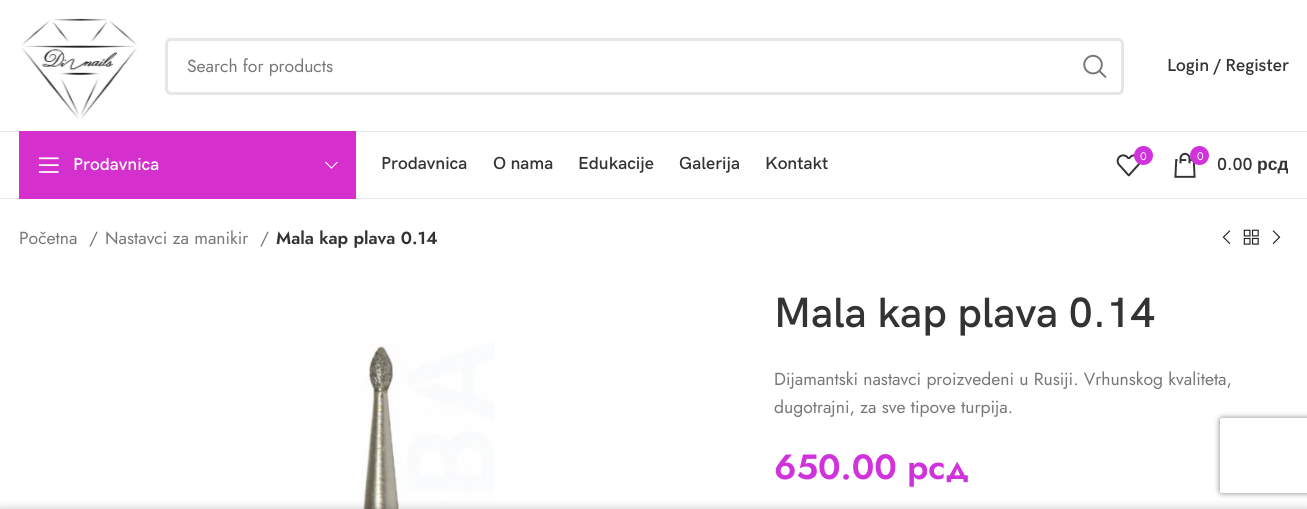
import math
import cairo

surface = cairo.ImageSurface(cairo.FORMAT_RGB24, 1307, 509)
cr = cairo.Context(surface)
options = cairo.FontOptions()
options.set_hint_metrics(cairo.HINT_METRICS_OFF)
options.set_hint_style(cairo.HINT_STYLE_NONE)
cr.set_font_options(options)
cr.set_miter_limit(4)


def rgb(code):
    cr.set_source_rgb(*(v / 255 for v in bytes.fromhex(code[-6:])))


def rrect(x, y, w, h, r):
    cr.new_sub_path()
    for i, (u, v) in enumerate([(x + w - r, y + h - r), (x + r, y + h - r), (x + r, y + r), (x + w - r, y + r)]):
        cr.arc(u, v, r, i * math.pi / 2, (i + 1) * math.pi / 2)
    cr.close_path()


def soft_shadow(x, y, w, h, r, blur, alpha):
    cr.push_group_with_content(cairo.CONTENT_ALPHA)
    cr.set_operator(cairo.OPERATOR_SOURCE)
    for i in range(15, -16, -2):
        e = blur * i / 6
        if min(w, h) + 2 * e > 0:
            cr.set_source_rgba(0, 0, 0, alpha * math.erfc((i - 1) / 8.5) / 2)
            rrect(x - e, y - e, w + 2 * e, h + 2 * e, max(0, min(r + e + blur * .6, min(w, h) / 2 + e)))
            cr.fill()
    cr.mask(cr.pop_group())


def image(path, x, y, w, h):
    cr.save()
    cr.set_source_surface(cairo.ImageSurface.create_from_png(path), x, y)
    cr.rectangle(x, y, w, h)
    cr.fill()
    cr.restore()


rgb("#ffffff")
cr.paint()
rgb("#e8e8e8")
cr.rectangle(0, 131, 1307, 1)
cr.fill()
image("img/1.png", 21, 18, 116, 101)
rrect(166.5, 39.5, 956, 54, 4.5)
rgb("#e6e6e6")
cr.set_line_width(3)
cr.stroke()
image("img/2.png", 1083, 54, 24, 25)
rgb("#e8e8e8")
cr.rectangle(0, 198, 1307, 1)
cr.fill()
rgb("#d530cd")
cr.rectangle(19, 131, 337, 68)
cr.fill()
image("img/3.png", 38, 157, 21, 16)
image("img/4.png", 325, 161, 13, 8)
image("img/5.png", 1116, 154, 24, 23)
rgb("#d032db")
cr.arc(1143.5, 155.5, 9.5, 0, 2 * math.pi)
cr.fill()
image("img/6.png", 1174, 152, 22, 26)
cr.arc(1199.5, 155.5, 9.5, 0, 2 * math.pi)
cr.fill()
image("img/7.png", 1222, 230, 9, 15)
image("img/8.png", 1243, 229, 16, 16)
image("img/9.png", 1272, 230, 9, 15)
image("img/10.png", 361, 343, 134, 166)
cr.save()
cr.set_fill_rule(cairo.FILL_RULE_EVEN_ODD)
cr.new_path()
cr.move_to(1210, 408)
cr.line_to(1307, 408)
cr.line_to(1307, 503)
cr.line_to(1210, 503)
cr.close_path()
cr.move_to(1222.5, 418)
cr.line_to(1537.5, 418)
cr.curve_to(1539, 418, 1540, 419, 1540, 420.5)
cr.line_to(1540, 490.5)
cr.curve_to(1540, 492, 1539, 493, 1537.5, 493)
cr.line_to(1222.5, 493)
cr.curve_to(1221, 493, 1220, 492, 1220, 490.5)
cr.line_to(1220, 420.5)
cr.curve_to(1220, 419, 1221, 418, 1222.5, 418)
cr.close_path()
cr.clip()
rgb("#808080")
soft_shadow(1220, 418, 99, 75, 2.5, 3, 1)
cr.restore()
rgb("#000000")
soft_shadow(0, 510, 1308, 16, 0, 5.5, 0.12)
soft_shadow(0, 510, 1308, 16, 0, 5.5, 0.14)
cr.select_font_face("Jost")
cr.set_font_size(17.5)
rgb("#777777")
cr.move_to(187, 72)
cr.show_text("Search for products")
cr.select_font_face("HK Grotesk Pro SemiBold")
rgb("#333333")
cr.move_to(1167, 71)
cr.show_text("Login / Register")
rgb("#ffffff")
cr.move_to(73, 170)
cr.show_text("Prodavnica")
rgb("#333333")
for x, y, s in [
    (381, 169, "Prodavnica"),
    (493, 169, "O nama"),
    (578, 169, "Edukacije"),
    (679, 169, "Galerija"),
    (765, 169, "Kontakt"),
]:
    cr.move_to(x, y)
    cr.show_text(s)
cr.select_font_face("Jost")
cr.set_font_size(11)
rgb("#ffffff")
cr.move_to(1140, 160)
cr.show_text("0")
cr.move_to(1197, 160)
cr.show_text("0")
cr.select_font_face("HK Grotesk Pro SemiBold")
cr.set_font_size(17.5)
rgb("#333333")
cr.move_to(1217, 170)
cr.show_text("0.00")
cr.select_font_face("Liberation Sans", cairo.FONT_SLANT_NORMAL, cairo.FONT_WEIGHT_BOLD)
cr.move_to(1257, 170)
cr.show_text("рсд")
cr.select_font_face("Jost")
rgb("#777777")
for x, y, s in [
    (19, 244, "Početna"),
    (89, 244, "/"),
    (105, 244, "Nastavci za manikir"),
    (260, 244, "/"),
]:
    cr.move_to(x, y)
    cr.show_text(s)
cr.select_font_face("Jost SemiBold")
rgb("#333333")
cr.move_to(276, 244)
cr.show_text("Mala kap plava 0.14")
cr.select_font_face("HK Grotesk Pro SemiBold")
cr.set_font_size(42.5)
cr.move_to(774, 327)
cr.show_text("Mala kap plava 0.14")
cr.select_font_face("Jost")
cr.set_font_size(17.5)
rgb("#777777")
cr.move_to(774, 385)
cr.show_text("Dijamantski nastavci proizvedeni u Rusiji. Vrhunskog kvaliteta,")
cr.move_to(774, 413)
cr.show_text("dugotrajni, za sve tipove turpija.")
cr.select_font_face("Jost SemiBold")
cr.set_font_size(35)
rgb("#d032db")
cr.move_to(774, 479)
cr.show_text("650.00 рсд")
surface.write_to_png("page.png")
